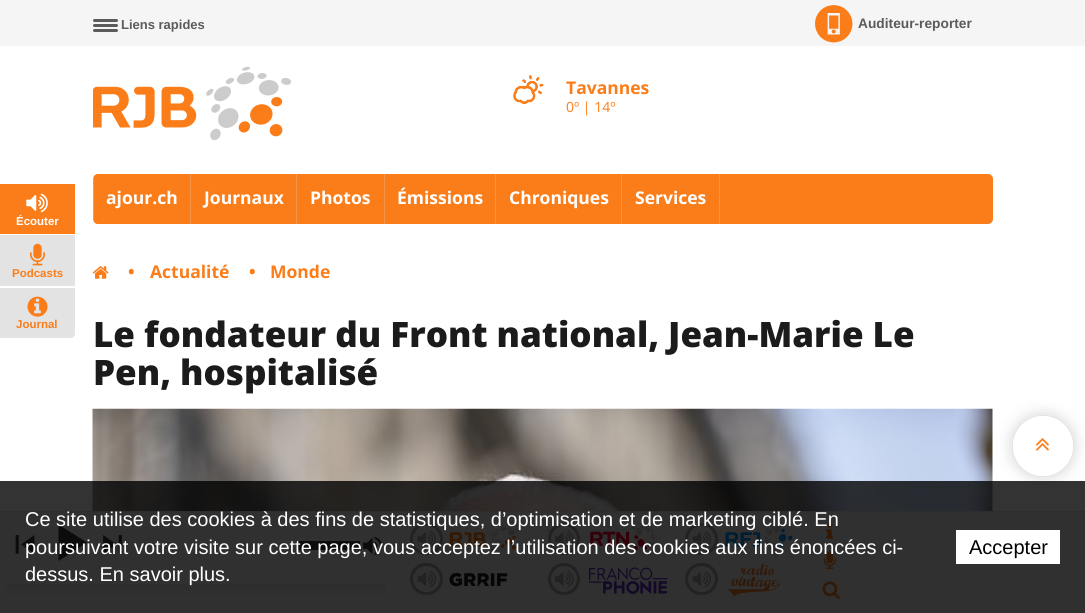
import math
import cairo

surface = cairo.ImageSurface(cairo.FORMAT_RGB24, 1085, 613)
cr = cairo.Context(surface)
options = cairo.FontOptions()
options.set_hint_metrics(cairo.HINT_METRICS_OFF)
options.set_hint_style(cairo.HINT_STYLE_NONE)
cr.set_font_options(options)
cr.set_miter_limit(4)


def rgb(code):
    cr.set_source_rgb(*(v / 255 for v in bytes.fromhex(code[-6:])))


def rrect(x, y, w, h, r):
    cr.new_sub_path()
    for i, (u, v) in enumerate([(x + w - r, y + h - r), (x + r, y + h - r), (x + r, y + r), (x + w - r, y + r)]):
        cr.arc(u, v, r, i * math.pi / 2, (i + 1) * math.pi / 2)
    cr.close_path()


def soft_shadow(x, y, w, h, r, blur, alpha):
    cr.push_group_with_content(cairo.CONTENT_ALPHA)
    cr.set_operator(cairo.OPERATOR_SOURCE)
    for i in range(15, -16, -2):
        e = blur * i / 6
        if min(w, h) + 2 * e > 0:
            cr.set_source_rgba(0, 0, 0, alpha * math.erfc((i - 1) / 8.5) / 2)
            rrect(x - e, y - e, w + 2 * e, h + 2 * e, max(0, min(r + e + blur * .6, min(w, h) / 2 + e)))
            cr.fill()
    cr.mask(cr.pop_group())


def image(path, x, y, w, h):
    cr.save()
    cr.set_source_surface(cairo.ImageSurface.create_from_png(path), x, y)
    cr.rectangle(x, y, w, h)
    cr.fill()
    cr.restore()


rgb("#ffffff")
cr.paint()
rgb("#f5f5f5")
cr.rectangle(0, 0, 1085, 46)
cr.fill()
rgb("#5b5b5b")
rrect(93, 24, 25, 3, 1.5)
cr.fill()
rrect(93, 19, 25, 3, 1.5)
cr.fill()
rrect(93, 29, 25, 3, 1.5)
cr.fill()
image("img/1.png", 815, 5, 38, 38)
image("img/2.png", 93, 66, 198, 75)
image("img/3.png", 513, 75, 31, 30)
rgb("#fb7d19")
rrect(93, 174, 900, 50, 5)
cr.fill()
rgb("#f69547")
cr.rectangle(190, 174, 1, 50)
cr.fill()
cr.set_source_rgba(1, 1, 1, 0.2)
cr.rectangle(93, 174, 1, 50)
cr.fill()
rgb("#fb7d19")
cr.new_path()
cr.move_to(99, 174)
cr.line_to(190, 174)
cr.line_to(190, 224)
cr.line_to(99, 224)
cr.curve_to(96, 224, 94, 222, 94, 219)
cr.line_to(94, 179)
cr.curve_to(94, 176, 96, 174, 99, 174)
cr.close_path()
cr.fill()
for x, y, w, h, color in [
    (296, 174, 1, 50, "#f69547"),
    (384, 174, 1, 50, "#f69547"),
    (495, 174, 1, 50, "#f69547"),
    (621, 174, 1, 50, "#f69547"),
    (719, 174, 1, 50, "#f69547"),
    (0, 184, 75, 50, "#fb7d19"),
]:
    rgb(color)
    cr.rectangle(x, y, w, h)
    cr.fill()
image("img/4.png", 26, 193, 22, 20)
rgb("#e3e3e3")
cr.rectangle(0, 235, 75, 51)
cr.fill()
image("img/5.png", 30, 243, 15, 23)
cr.new_path()
cr.move_to(0, 288)
cr.line_to(75, 288)
cr.line_to(75, 334)
cr.curve_to(75, 336, 73, 338, 71, 338)
cr.line_to(0, 338)
cr.close_path()
cr.fill()
image("img/6.png", 27, 296, 21, 21)
image("img/7.png", 92, 266, 17, 13)
image("img/8.png", 92, 408, 901, 103)
cr.save()
cr.set_fill_rule(cairo.FILL_RULE_EVEN_ODD)
cr.new_path()
cr.move_to(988, 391)
cr.line_to(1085, 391)
cr.line_to(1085, 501)
cr.line_to(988, 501)
cr.close_path()
cr.move_to(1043, 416)
cr.curve_to(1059.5, 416, 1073, 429.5, 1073, 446)
cr.curve_to(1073, 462.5, 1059.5, 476, 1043, 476)
cr.curve_to(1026.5, 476, 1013, 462.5, 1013, 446)
cr.curve_to(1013, 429.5, 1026.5, 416, 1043, 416)
cr.close_path()
cr.clip()
rgb("#000000")
soft_shadow(1013, 416, 60, 60, 30, 8, 0.2)
cr.restore()
cr.set_source_rgba(1, 1, 1, 0.6)
cr.arc(1043, 446, 30, 0, 2 * math.pi)
cr.fill()
image("img/9.png", 1036, 438, 13, 13)
rgb("#f0f0f0")
cr.rectangle(0, 512, 1085, 101)
cr.fill()
rgb("#e0e0e0")
cr.rectangle(0, 511, 1085, 1)
cr.fill()
image("img/10.png", 15, 535, 20, 19)
rgb("#3c3c3c")
cr.new_path()
cr.move_to(58.5, 524.5)
cr.line_to(87, 542.5)
cr.line_to(58.5, 561)
cr.close_path()
cr.fill()
image("img/11.png", 103, 535, 19, 19)
cr.rectangle(298, 541, 62, 9)
cr.fill()
image("img/12.png", 363, 536, 19, 19)
cr.rectangle(6.5, 584.5, 378, 8)
rgb("#e3e3e3")
cr.set_line_width(1)
cr.stroke()
cr.rectangle(8, 585, 376, 6)
cr.fill()
image("img/13.png", 449, 525, 70, 26)
rrect(411.5, 524.5, 30, 29, 14.5)
rgb("#a9a9a9")
cr.set_line_width(3)
cr.stroke()
image("img/14.png", 417, 531, 19, 16)
image("img/15.png", 548, 523, 109, 30)
rgb("#f0f0f0")
cr.arc(564, 539, 14.5, 0, 2 * math.pi)
cr.fill_preserve()
rgb("#a9a9a9")
cr.stroke()
image("img/16.png", 555, 531, 19, 16)
image("img/17.png", 725, 522, 68, 35)
rrect(686.5, 524.5, 30, 29, 14.5)
cr.stroke()
image("img/14.png", 692, 531, 19, 16)
image("img/18.png", 449, 573, 59, 14)
rrect(411.5, 564.5, 30, 29, 14.5)
cr.stroke()
image("img/14.png", 417, 571, 19, 16)
image("img/19.png", 548, 567, 120, 27)
rgb("#f0f0f0")
cr.arc(564, 579, 14.5, 0, 2 * math.pi)
cr.fill_preserve()
rgb("#a9a9a9")
cr.stroke()
image("img/16.png", 555, 571, 19, 16)
image("img/20.png", 726, 563, 54, 34)
rrect(686.5, 564.5, 30, 29, 14.5)
cr.stroke()
image("img/14.png", 692, 571, 19, 16)
image("img/21.png", 826, 524, 7, 15)
image("img/22.png", 823, 551, 13, 18)
image("img/23.png", 822, 581, 18, 18)
cr.set_source_rgba(0, 0, 0, 0.8)
cr.rectangle(0, 481, 1085, 132)
cr.fill()
rgb("#ffffff")
cr.rectangle(956, 530, 104, 34)
cr.fill()
cr.select_font_face("Liberation Sans", cairo.FONT_SLANT_NORMAL, cairo.FONT_WEIGHT_BOLD)
cr.set_font_size(13)
rgb("#5b5b5b")
cr.move_to(121, 29)
cr.show_text("Liens rapides")
cr.set_font_size(13.75)
cr.move_to(858, 28)
cr.show_text("Auditeur-reporter")
cr.select_font_face("Open Sans", cairo.FONT_SLANT_NORMAL, cairo.FONT_WEIGHT_BOLD)
cr.set_font_size(17.5)
rgb("#fb7d19")
cr.move_to(566, 94)
cr.show_text("Tavannes")
cr.select_font_face("Open Sans")
cr.set_font_size(14)
cr.move_to(566, 112)
cr.show_text("0º | 14º")
cr.select_font_face("Open Sans", cairo.FONT_SLANT_NORMAL, cairo.FONT_WEIGHT_BOLD)
cr.set_font_size(17.5)
rgb("#ffffff")
for x, y, s in [
    (106, 204, "ajour.ch"),
    (204, 204, "Journaux"),
    (310, 204, "Photos"),
    (397, 204, "Émissions"),
    (509, 204, "Chroniques"),
    (635, 204, "Services"),
]:
    cr.move_to(x, y)
    cr.show_text(s)
cr.select_font_face("Liberation Sans", cairo.FONT_SLANT_NORMAL, cairo.FONT_WEIGHT_BOLD)
cr.set_font_size(11.5)
cr.move_to(16, 225)
cr.show_text("Écouter")
rgb("#fb7d19")
cr.move_to(12, 277)
cr.show_text("Podcasts")
cr.move_to(16, 328)
cr.show_text("Journal")
cr.select_font_face("Open Sans", cairo.FONT_SLANT_NORMAL, cairo.FONT_WEIGHT_BOLD)
cr.set_font_size(17.5)
for x, y, s in [
    (128, 278, "•"),
    (150, 278, "Actualité"),
    (249, 278, "•"),
    (270, 278, "Monde"),
]:
    cr.move_to(x, y)
    cr.show_text(s)
cr.select_font_face("Open Sans ExtraBold")
cr.set_font_size(35)
rgb("#1b1b1b")
cr.move_to(93, 347)
cr.show_text("Le fondateur du Front national, Jean-Marie Le")
cr.move_to(93, 385)
cr.show_text("Pen, hospitalisé")
cr.select_font_face("Liberation Sans")
cr.set_font_size(20)
rgb("#ffffff")
for x, y, s in [
    (25, 526, "Ce site utilise des cookies à des fins de statistiques, d’optimisation et de marketing ciblé. En"),
    (25, 554, "poursuivant votre visite sur cette page, vous acceptez l’utilisation des cookies aux fins énoncées ci-"),
    (25, 581, "dessus. En savoir plus."),
]:
    cr.move_to(x, y)
    cr.show_text(s)
rgb("#000000")
cr.move_to(969, 554)
cr.show_text("Accepter")
surface.write_to_png("page.png")
